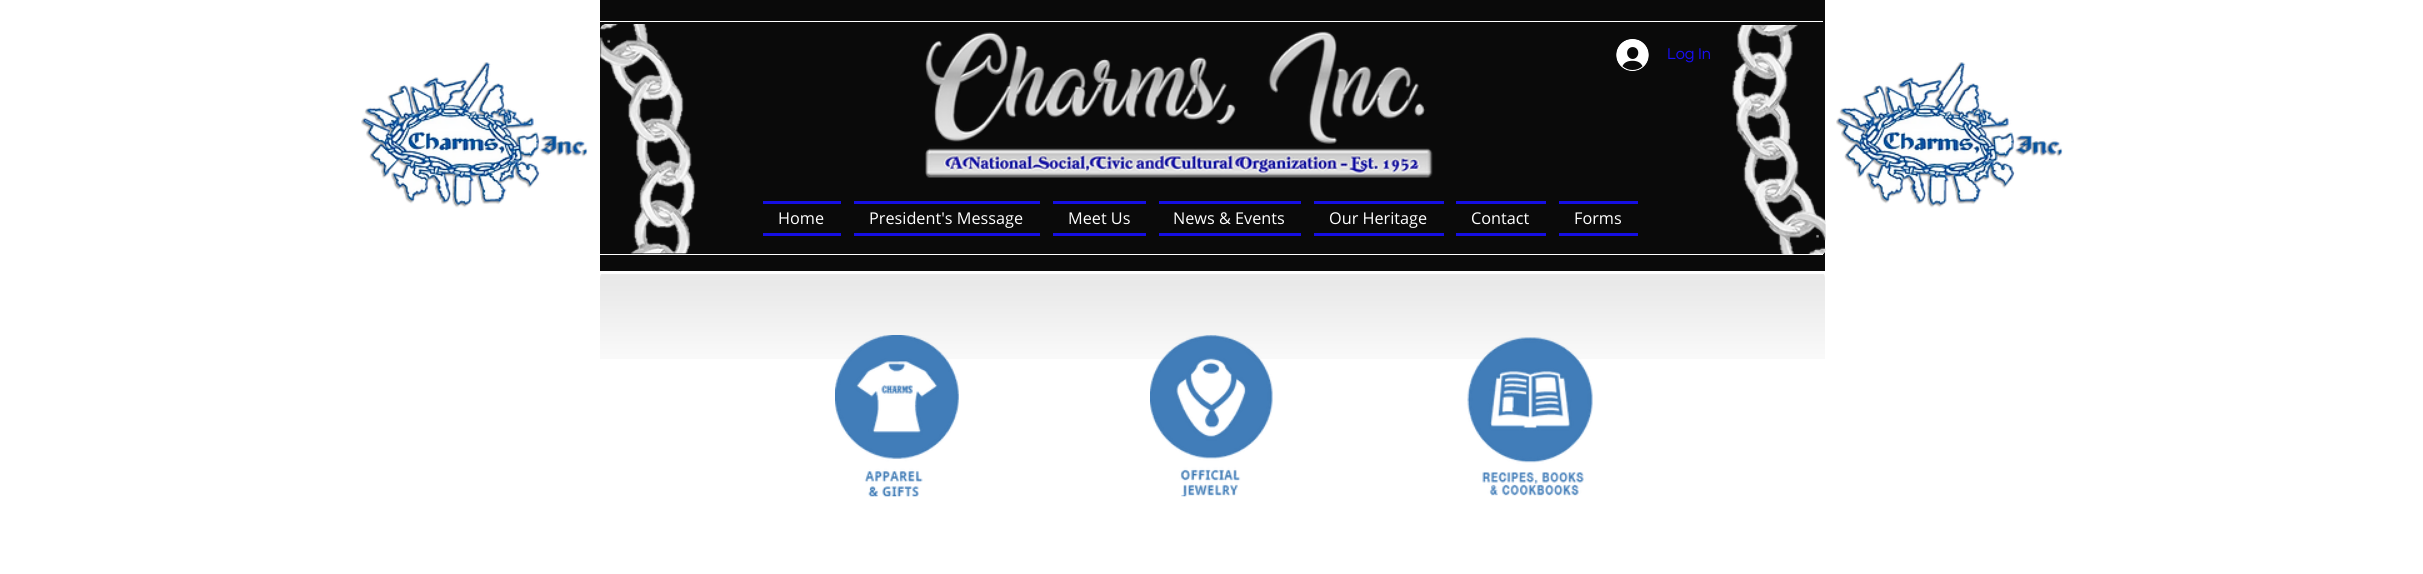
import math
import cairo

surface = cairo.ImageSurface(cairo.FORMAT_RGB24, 2423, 574)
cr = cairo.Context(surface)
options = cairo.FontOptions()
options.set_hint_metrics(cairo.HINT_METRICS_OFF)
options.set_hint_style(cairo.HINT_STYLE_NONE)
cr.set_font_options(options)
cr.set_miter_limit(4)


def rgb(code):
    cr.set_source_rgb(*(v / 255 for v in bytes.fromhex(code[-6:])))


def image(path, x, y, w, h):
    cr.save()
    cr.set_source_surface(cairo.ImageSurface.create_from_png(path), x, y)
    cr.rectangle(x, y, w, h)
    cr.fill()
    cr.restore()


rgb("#ffffff")
cr.paint()
rgb("#0a0a0a")
cr.rectangle(600, 0, 1225, 271)
cr.fill()
rgb("#ffffff")
cr.rectangle(600, 21, 1223, 1)
cr.fill()
image("img/1.png", 600, 24, 96, 230)
image("img/2.png", 925, 31, 508, 147)
image("img/3.png", 1616, 39, 33, 32)
image("img/4.png", 1732, 25, 94, 229)
image("img/5.png", 361, 62, 227, 146)
image("img/6.png", 1836, 62, 227, 146)
for x, y, w, h, color in [
    (763, 201, 78, 3, "#150ee3"),
    (763, 233, 78, 3, "#150ee3"),
    (854, 201, 186, 3, "#150ee3"),
    (854, 233, 186, 3, "#150ee3"),
    (1053, 201, 93, 3, "#150ee3"),
    (1053, 233, 93, 3, "#150ee3"),
    (1159, 201, 142, 3, "#150ee3"),
    (1159, 233, 142, 3, "#150ee3"),
    (1314, 201, 130, 3, "#150ee3"),
    (1314, 233, 130, 3, "#150ee3"),
    (1456, 201, 90, 3, "#150ee3"),
    (1456, 233, 90, 3, "#150ee3"),
    (1559, 201, 79, 3, "#150ee3"),
    (1559, 233, 79, 3, "#150ee3"),
    (600, 254, 1223, 1, "#ffffff"),
]:
    rgb(color)
    cr.rectangle(x, y, w, h)
    cr.fill()
image("img/7.png", 600, 274, 1225, 85)
image("img/8.png", 835, 335, 124, 162)
image("img/9.png", 1150, 335, 123, 162)
image("img/10.png", 1467, 337, 126, 159)
cr.select_font_face("Questrial")
cr.set_font_size(16.25)
rgb("#170df2")
cr.move_to(1667, 59)
cr.show_text("Log In")
cr.select_font_face("Open Sans")
rgb("#ffffff")
for x, y, s in [
    (778, 224, "Home"),
    (869, 224, "President's Message"),
    (1068, 224, "Meet Us"),
    (1173, 224, "News & Events"),
    (1329, 224, "Our Heritage"),
    (1471, 224, "Contact"),
    (1574, 224, "Forms"),
]:
    cr.move_to(x, y)
    cr.show_text(s)
surface.write_to_png("page.png")
